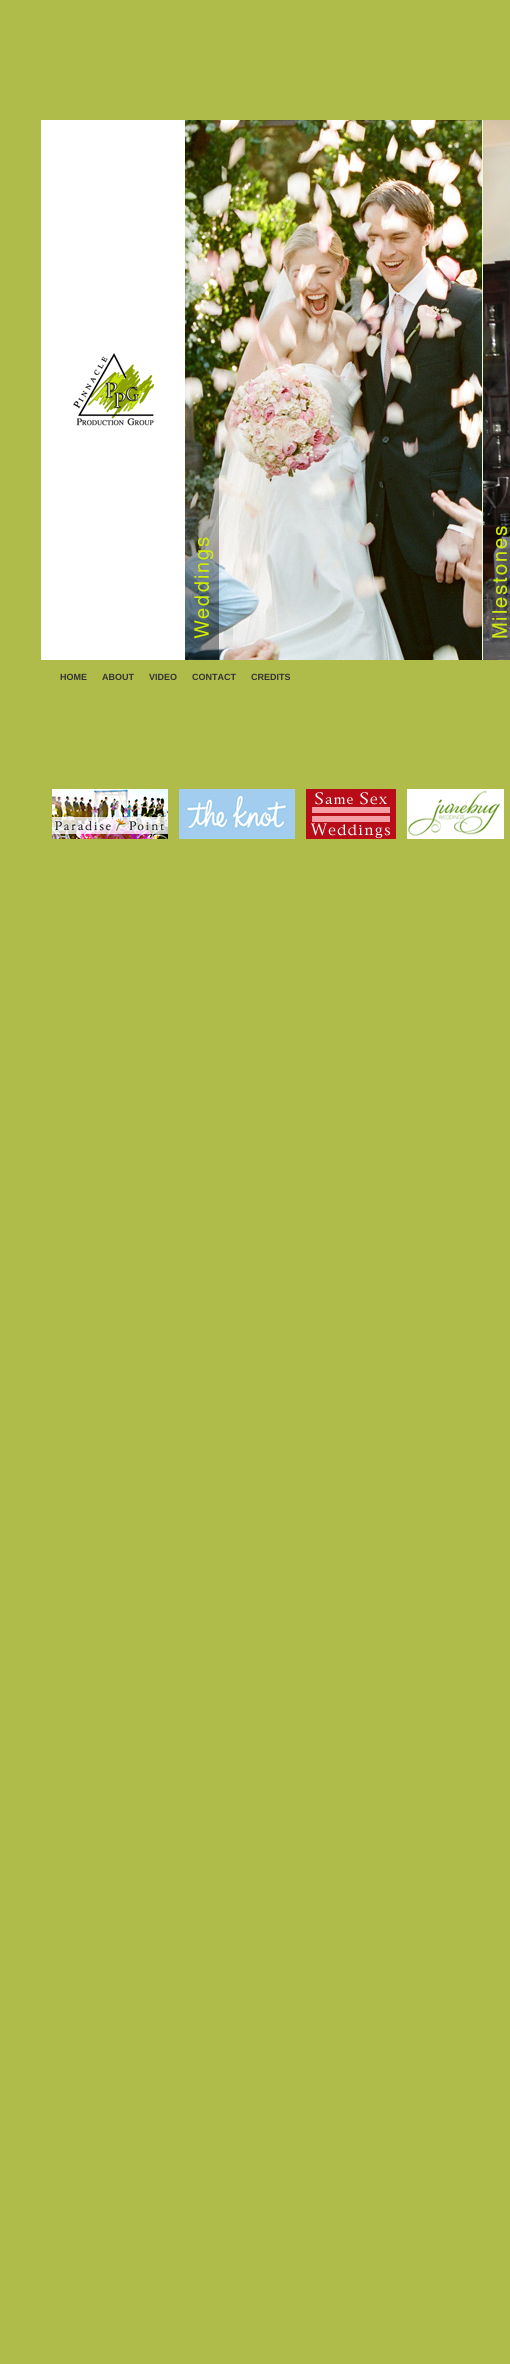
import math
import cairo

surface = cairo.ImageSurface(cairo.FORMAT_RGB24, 510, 2364)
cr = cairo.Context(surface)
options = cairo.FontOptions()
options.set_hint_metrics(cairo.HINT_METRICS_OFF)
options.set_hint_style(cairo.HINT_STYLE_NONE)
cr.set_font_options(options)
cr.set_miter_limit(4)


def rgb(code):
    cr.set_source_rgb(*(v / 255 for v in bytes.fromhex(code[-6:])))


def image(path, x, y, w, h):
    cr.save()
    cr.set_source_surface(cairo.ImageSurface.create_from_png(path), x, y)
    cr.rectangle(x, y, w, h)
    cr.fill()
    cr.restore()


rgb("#b0bc4a")
cr.paint()
rgb("#ffffff")
cr.rectangle(41, 120, 144, 540)
cr.fill()
image("img/1.png", 72, 353, 83, 73)
rgb("#e7ffd6")
cr.rectangle(482, 120, 1, 540)
cr.fill()
image("img/2.png", 185, 120, 297, 540)
image("img/3.png", 483, 120, 27, 540)
image("img/4.png", 52, 789, 116, 50)
image("img/5.png", 179, 789, 116, 50)
image("img/6.png", 306, 789, 90, 50)
image("img/7.png", 407, 789, 97, 50)
cr.select_font_face("Liberation Sans", cairo.FONT_SLANT_NORMAL, cairo.FONT_WEIGHT_BOLD)
cr.set_font_size(9)
rgb("#333333")
for x, y, s in [
    (60, 680, "HOME"),
    (102, 680, "ABOUT"),
    (149, 680, "VIDEO"),
    (192, 680, "CONTACT"),
    (251, 680, "CREDITS"),
]:
    cr.move_to(x, y)
    cr.show_text(s)
surface.write_to_png("page.png")
